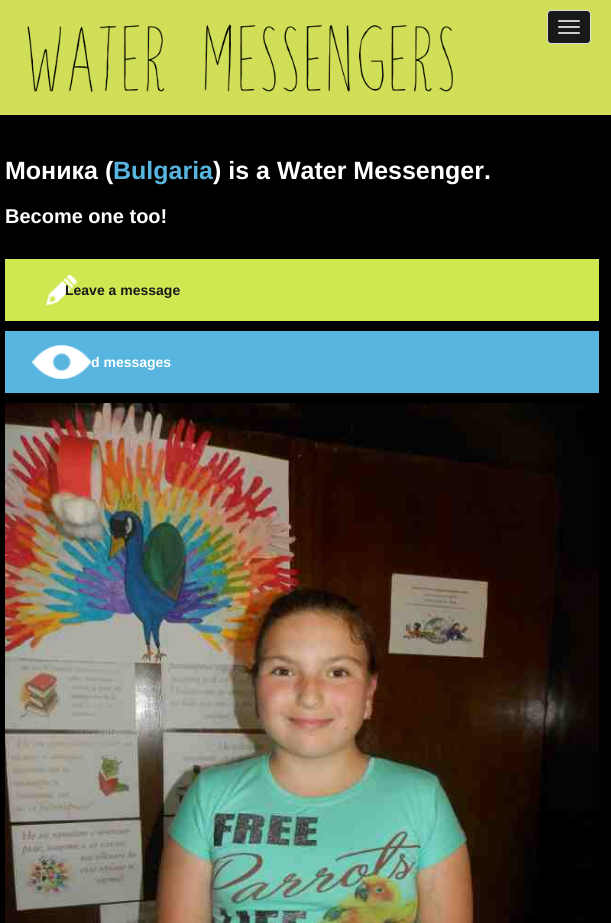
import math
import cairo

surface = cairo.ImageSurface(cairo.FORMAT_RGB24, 611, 923)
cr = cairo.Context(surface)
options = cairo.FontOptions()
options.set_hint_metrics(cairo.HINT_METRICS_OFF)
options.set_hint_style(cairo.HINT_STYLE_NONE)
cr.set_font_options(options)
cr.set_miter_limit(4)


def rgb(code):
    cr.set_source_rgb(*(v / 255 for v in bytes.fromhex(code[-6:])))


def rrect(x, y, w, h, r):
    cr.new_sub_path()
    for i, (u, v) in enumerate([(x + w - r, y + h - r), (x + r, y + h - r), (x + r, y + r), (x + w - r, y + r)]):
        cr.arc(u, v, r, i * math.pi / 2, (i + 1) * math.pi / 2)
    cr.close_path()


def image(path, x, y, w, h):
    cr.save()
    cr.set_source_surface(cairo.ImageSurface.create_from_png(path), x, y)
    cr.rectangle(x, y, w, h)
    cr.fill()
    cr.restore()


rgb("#000000")
cr.paint()
rgb("#d0df57")
cr.rectangle(0, 0, 611, 115)
cr.fill()
image("img/1.png", 27, 24, 426, 68)
rgb("#191919")
rrect(547.5, 10.5, 43, 33, 3.5)
cr.fill_preserve()
rgb("#dddddd")
cr.set_line_width(1)
cr.stroke()
rgb("#cccccc")
rrect(558, 20, 22, 2, 1)
cr.fill()
rrect(558, 26, 22, 2, 1)
cr.fill()
rrect(558, 32, 22, 2, 1)
cr.fill()
rgb("#d1e751")
cr.rectangle(5, 259, 594, 62)
cr.fill()
image("img/2.png", 46, 275, 31, 31)
rgb("#58b5df")
cr.rectangle(5, 331, 594, 62)
cr.fill()
image("img/3.png", 32, 345, 59, 34)
image("img/4.png", 5, 403, 594, 520)
cr.select_font_face("Liberation Sans", cairo.FONT_SLANT_NORMAL, cairo.FONT_WEIGHT_BOLD)
cr.set_font_size(25)
rgb("#ffffff")
cr.move_to(5, 179)
cr.show_text("Моника (")
rgb("#58b5df")
cr.move_to(113, 179)
cr.show_text("Bulgaria")
rgb("#ffffff")
cr.move_to(213, 179)
cr.show_text(") is a Water Messenger.")
cr.set_font_size(20)
cr.move_to(5, 223)
cr.show_text("Become one too!")
cr.set_font_size(14)
rgb("#191919")
cr.move_to(65, 295)
cr.show_text("Leave a message")
rgb("#ffffff")
cr.move_to(91, 367)
cr.show_text("d messages")
surface.write_to_png("page.png")
